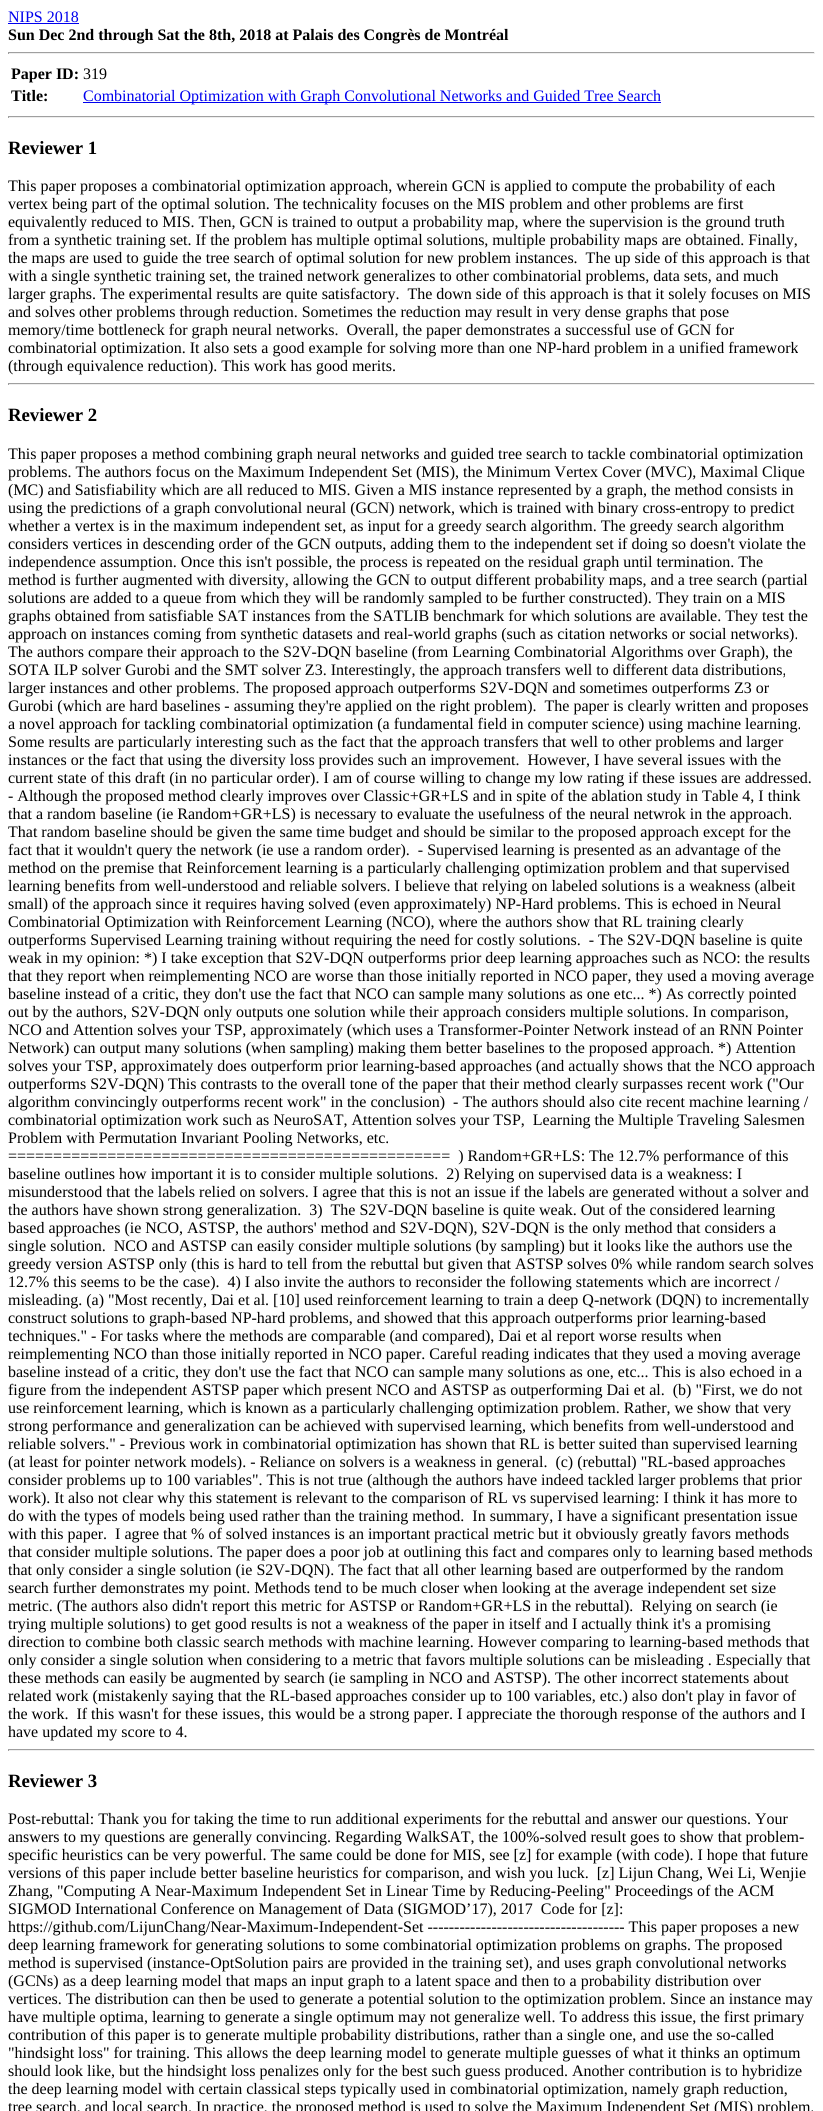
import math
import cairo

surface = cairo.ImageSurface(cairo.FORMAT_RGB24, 823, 2111)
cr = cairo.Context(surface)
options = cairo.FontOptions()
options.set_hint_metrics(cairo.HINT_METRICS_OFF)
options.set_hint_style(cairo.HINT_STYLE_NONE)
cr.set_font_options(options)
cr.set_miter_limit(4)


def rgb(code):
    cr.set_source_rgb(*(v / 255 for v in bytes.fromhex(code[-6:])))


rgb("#ffffff")
cr.paint()
for x, y, w, h, color in [
    (8, 23, 71, 1, "#0000ee"),
    (8, 52, 807, 1, "#9f9f9f"),
    (814, 52, 1, 2, "#eeeeee"),
    (8, 53, 807, 1, "#eeeeee"),
    (8, 52, 1, 2, "#9f9f9f"),
    (83, 102, 578, 1, "#0000ee"),
    (8, 116, 807, 1, "#9f9f9f"),
    (814, 116, 1, 2, "#eeeeee"),
    (8, 117, 807, 1, "#eeeeee"),
    (8, 116, 1, 2, "#9f9f9f"),
    (8, 383, 807, 1, "#9f9f9f"),
    (814, 383, 1, 2, "#eeeeee"),
    (8, 384, 807, 1, "#eeeeee"),
    (8, 383, 1, 2, "#9f9f9f"),
    (8, 1749, 807, 1, "#9f9f9f"),
    (814, 1749, 1, 2, "#eeeeee"),
    (8, 1750, 807, 1, "#eeeeee"),
    (8, 1749, 1, 2, "#9f9f9f"),
]:
    rgb(color)
    cr.rectangle(x, y, w, h)
    cr.fill()
cr.select_font_face("Liberation Serif")
cr.set_font_size(16)
rgb("#0000ee")
cr.move_to(8, 22)
cr.show_text("NIPS 2018")
cr.select_font_face("Liberation Serif", cairo.FONT_SLANT_NORMAL, cairo.FONT_WEIGHT_BOLD)
rgb("#000000")
cr.move_to(8, 40)
cr.show_text("Sun Dec 2nd through Sat the 8th, 2018 at Palais des Congrès de Montréal")
cr.move_to(11, 79)
cr.show_text("Paper ID:")
cr.select_font_face("Liberation Serif")
cr.move_to(83, 79)
cr.show_text("319")
cr.select_font_face("Liberation Serif", cairo.FONT_SLANT_NORMAL, cairo.FONT_WEIGHT_BOLD)
cr.move_to(11, 101)
cr.show_text("Title:")
cr.select_font_face("Liberation Serif")
rgb("#0000ee")
cr.move_to(83, 101)
cr.show_text("Combinatorial Optimization with Graph Convolutional Networks and Guided Tree Search")
cr.select_font_face("Liberation Serif", cairo.FONT_SLANT_NORMAL, cairo.FONT_WEIGHT_BOLD)
cr.set_font_size(18.75)
rgb("#000000")
cr.move_to(8, 154)
cr.show_text("Reviewer 1")
cr.select_font_face("Liberation Serif")
cr.set_font_size(16)
for x, y, s in [
    (8, 191, "This paper proposes a combinatorial optimization approach, wherein GCN is applied to compute the probability of each"),
    (8, 209, "vertex being part of the optimal solution. The technicality focuses on the MIS problem and other problems are first"),
    (8, 227, "equivalently reduced to MIS. Then, GCN is trained to output a probability map, where the supervision is the ground truth"),
    (8, 245, "from a synthetic training set. If the problem has multiple optimal solutions, multiple probability maps are obtained. Finally,"),
    (8, 263, "the maps are used to guide the tree search of optimal solution for new problem instances.  The up side of this approach is that"),
    (8, 281, "with a single synthetic training set, the trained network generalizes to other combinatorial problems, data sets, and much"),
    (8, 299, "larger graphs. The experimental results are quite satisfactory.  The down side of this approach is that it solely focuses on MIS"),
    (8, 317, "and solves other problems through reduction. Sometimes the reduction may result in very dense graphs that pose"),
    (8, 335, "memory/time bottleneck for graph neural networks.  Overall, the paper demonstrates a successful use of GCN for"),
    (8, 353, "combinatorial optimization. It also sets a good example for solving more than one NP-hard problem in a unified framework"),
    (8, 371, "(through equivalence reduction). This work has good merits."),
]:
    cr.move_to(x, y)
    cr.show_text(s)
cr.select_font_face("Liberation Serif", cairo.FONT_SLANT_NORMAL, cairo.FONT_WEIGHT_BOLD)
cr.set_font_size(18.75)
cr.move_to(8, 421)
cr.show_text("Reviewer 2")
cr.select_font_face("Liberation Serif")
cr.set_font_size(16)
for x, y, s in [
    (8, 459, "This paper proposes a method combining graph neural networks and guided tree search to tackle combinatorial optimization"),
    (8, 477, "problems. The authors focus on the Maximum Independent Set (MIS), the Minimum Vertex Cover (MVC), Maximal Clique"),
    (8, 495, "(MC) and Satisfiability which are all reduced to MIS. Given a MIS instance represented by a graph, the method consists in"),
    (8, 513, "using the predictions of a graph convolutional neural (GCN) network, which is trained with binary cross-entropy to predict"),
    (8, 531, "whether a vertex is in the maximum independent set, as input for a greedy search algorithm. The greedy search algorithm"),
    (8, 549, "considers vertices in descending order of the GCN outputs, adding them to the independent set if doing so doesn't violate the"),
    (8, 567, "independence assumption. Once this isn't possible, the process is repeated on the residual graph until termination. The"),
    (8, 585, "method is further augmented with diversity, allowing the GCN to output different probability maps, and a tree search (partial"),
    (8, 603, "solutions are added to a queue from which they will be randomly sampled to be further constructed). They train on a MIS"),
    (8, 621, "graphs obtained from satisfiable SAT instances from the SATLIB benchmark for which solutions are available. They test the"),
    (8, 639, "approach on instances coming from synthetic datasets and real-world graphs (such as citation networks or social networks)."),
    (8, 657, "The authors compare their approach to the S2V-DQN baseline (from Learning Combinatorial Algorithms over Graph), the"),
    (8, 675, "SOTA ILP solver Gurobi and the SMT solver Z3. Interestingly, the approach transfers well to different data distributions,"),
    (8, 693, "larger instances and other problems. The proposed approach outperforms S2V-DQN and sometimes outperforms Z3 or"),
    (8, 711, "Gurobi (which are hard baselines - assuming they're applied on the right problem).  The paper is clearly written and proposes"),
    (8, 729, "a novel approach for tackling combinatorial optimization (a fundamental field in computer science) using machine learning."),
    (8, 747, "Some results are particularly interesting such as the fact that the approach transfers that well to other problems and larger"),
    (8, 765, "instances or the fact that using the diversity loss provides such an improvement.  However, I have several issues with the"),
    (8, 783, "current state of this draft (in no particular order). I am of course willing to change my low rating if these issues are addressed."),
    (8, 801, "- Although the proposed method clearly improves over Classic+GR+LS and in spite of the ablation study in Table 4, I think"),
    (8, 819, "that a random baseline (ie Random+GR+LS) is necessary to evaluate the usefulness of the neural netwrok in the approach."),
    (8, 837, "That random baseline should be given the same time budget and should be similar to the proposed approach except for the"),
    (8, 855, "fact that it wouldn't query the network (ie use a random order).  - Supervised learning is presented as an advantage of the"),
    (8, 873, "method on the premise that Reinforcement learning is a particularly challenging optimization problem and that supervised"),
    (8, 891, "learning benefits from well-understood and reliable solvers. I believe that relying on labeled solutions is a weakness (albeit"),
    (8, 909, "small) of the approach since it requires having solved (even approximately) NP-Hard problems. This is echoed in Neural"),
    (8, 927, "Combinatorial Optimization with Reinforcement Learning (NCO), where the authors show that RL training clearly"),
    (8, 945, "outperforms Supervised Learning training without requiring the need for costly solutions.  - The S2V-DQN baseline is quite"),
    (8, 963, "weak in my opinion: *) I take exception that S2V-DQN outperforms prior deep learning approaches such as NCO: the results"),
    (8, 981, "that they report when reimplementing NCO are worse than those initially reported in NCO paper, they used a moving average"),
    (8, 999, "baseline instead of a critic, they don't use the fact that NCO can sample many solutions as one etc... *) As correctly pointed"),
    (8, 1017, "out by the authors, S2V-DQN only outputs one solution while their approach considers multiple solutions. In comparison,"),
    (8, 1035, "NCO and Attention solves your TSP, approximately (which uses a Transformer-Pointer Network instead of an RNN Pointer"),
    (8, 1053, "Network) can output many solutions (when sampling) making them better baselines to the proposed approach. *) Attention"),
    (8, 1071, "solves your TSP, approximately does outperform prior learning-based approaches (and actually shows that the NCO approach"),
    (8, 1089, "outperforms S2V-DQN) This contrasts to the overall tone of the paper that their method clearly surpasses recent work (\"Our"),
    (8, 1107, "algorithm convincingly outperforms recent work\" in the conclusion)  - The authors should also cite recent machine learning /"),
    (8, 1125, "combinatorial optimization work such as NeuroSAT, Attention solves your TSP,  Learning the Multiple Traveling Salesmen"),
    (8, 1143, "Problem with Permutation Invariant Pooling Networks, etc."),
    (8, 1161, "=================================================  ) Random+GR+LS: The 12.7% performance of this"),
    (8, 1179, "baseline outlines how important it is to consider multiple solutions.  2) Relying on supervised data is a weakness: I"),
    (8, 1197, "misunderstood that the labels relied on solvers. I agree that this is not an issue if the labels are generated without a solver and"),
    (8, 1215, "the authors have shown strong generalization.  3)  The S2V-DQN baseline is quite weak. Out of the considered learning"),
    (8, 1233, "based approaches (ie NCO, ASTSP, the authors' method and S2V-DQN), S2V-DQN is the only method that considers a"),
    (8, 1251, "single solution.  NCO and ASTSP can easily consider multiple solutions (by sampling) but it looks like the authors use the"),
    (8, 1269, "greedy version ASTSP only (this is hard to tell from the rebuttal but given that ASTSP solves 0% while random search solves"),
    (8, 1287, "12.7% this seems to be the case).  4) I also invite the authors to reconsider the following statements which are incorrect /"),
    (8, 1305, "misleading. (a) \"Most recently, Dai et al. [10] used reinforcement learning to train a deep Q-network (DQN) to incrementally"),
    (8, 1323, "construct solutions to graph-based NP-hard problems, and showed that this approach outperforms prior learning-based"),
    (8, 1341, "techniques.\" - For tasks where the methods are comparable (and compared), Dai et al report worse results when"),
    (8, 1359, "reimplementing NCO than those initially reported in NCO paper. Careful reading indicates that they used a moving average"),
    (8, 1377, "baseline instead of a critic, they don't use the fact that NCO can sample many solutions as one, etc... This is also echoed in a"),
    (8, 1395, "figure from the independent ASTSP paper which present NCO and ASTSP as outperforming Dai et al.  (b) \"First, we do not"),
    (8, 1413, "use reinforcement learning, which is known as a particularly challenging optimization problem. Rather, we show that very"),
    (8, 1431, "strong performance and generalization can be achieved with supervised learning, which benefits from well-understood and"),
    (8, 1449, "reliable solvers.\" - Previous work in combinatorial optimization has shown that RL is better suited than supervised learning"),
    (8, 1467, "(at least for pointer network models). - Reliance on solvers is a weakness in general.  (c) (rebuttal) \"RL-based approaches"),
    (8, 1485, "consider problems up to 100 variables\". This is not true (although the authors have indeed tackled larger problems that prior"),
    (8, 1503, "work). It also not clear why this statement is relevant to the comparison of RL vs supervised learning: I think it has more to"),
    (8, 1521, "do with the types of models being used rather than the training method.  In summary, I have a significant presentation issue"),
    (8, 1539, "with this paper.  I agree that % of solved instances is an important practical metric but it obviously greatly favors methods"),
    (8, 1557, "that consider multiple solutions. The paper does a poor job at outlining this fact and compares only to learning based methods"),
    (8, 1575, "that only consider a single solution (ie S2V-DQN). The fact that all other learning based are outperformed by the random"),
    (8, 1593, "search further demonstrates my point. Methods tend to be much closer when looking at the average independent set size"),
    (8, 1611, "metric. (The authors also didn't report this metric for ASTSP or Random+GR+LS in the rebuttal).  Relying on search (ie"),
    (8, 1629, "trying multiple solutions) to get good results is not a weakness of the paper in itself and I actually think it's a promising"),
    (8, 1647, "direction to combine both classic search methods with machine learning. However comparing to learning-based methods that"),
    (8, 1665, "only consider a single solution when considering to a metric that favors multiple solutions can be misleading . Especially that"),
    (8, 1683, "these methods can easily be augmented by search (ie sampling in NCO and ASTSP). The other incorrect statements about"),
    (8, 1701, "related work (mistakenly saying that the RL-based approaches consider up to 100 variables, etc.) also don't play in favor of"),
    (8, 1719, "the work.  If this wasn't for these issues, this would be a strong paper. I appreciate the thorough response of the authors and I"),
    (8, 1737, "have updated my score to 4."),
]:
    cr.move_to(x, y)
    cr.show_text(s)
cr.select_font_face("Liberation Serif", cairo.FONT_SLANT_NORMAL, cairo.FONT_WEIGHT_BOLD)
cr.set_font_size(18.75)
cr.move_to(8, 1787)
cr.show_text("Reviewer 3")
cr.select_font_face("Liberation Serif")
cr.set_font_size(16)
for x, y, s in [
    (8, 1824, "Post-rebuttal: Thank you for taking the time to run additional experiments for the rebuttal and answer our questions. Your"),
    (8, 1842, "answers to my questions are generally convincing. Regarding WalkSAT, the 100%-solved result goes to show that problem-"),
    (8, 1860, "specific heuristics can be very powerful. The same could be done for MIS, see [z] for example (with code). I hope that future"),
    (8, 1878, "versions of this paper include better baseline heuristics for comparison, and wish you luck.  [z] Lijun Chang, Wei Li, Wenjie"),
    (8, 1896, "Zhang, \"Computing A Near-Maximum Independent Set in Linear Time by Reducing-Peeling\" Proceedings of the ACM"),
    (8, 1914, "SIGMOD International Conference on Management of Data (SIGMOD’17), 2017  Code for [z]:"),
    (8, 1932, "https://github.com/LijunChang/Near-Maximum-Independent-Set ------------------------------------- This paper proposes a new"),
    (8, 1950, "deep learning framework for generating solutions to some combinatorial optimization problems on graphs. The proposed"),
    (8, 1968, "method is supervised (instance-OptSolution pairs are provided in the training set), and uses graph convolutional networks"),
    (8, 1986, "(GCNs) as a deep learning model that maps an input graph to a latent space and then to a probability distribution over"),
    (8, 2004, "vertices. The distribution can then be used to generate a potential solution to the optimization problem. Since an instance may"),
    (8, 2022, "have multiple optima, learning to generate a single optimum may not generalize well. To address this issue, the first primary"),
    (8, 2040, "contribution of this paper is to generate multiple probability distributions, rather than a single one, and use the so-called"),
    (8, 2058, "\"hindsight loss\" for training. This allows the deep learning model to generate multiple guesses of what it thinks an optimum"),
    (8, 2076, "should look like, but the hindsight loss penalizes only for the best such guess produced. Another contribution is to hybridize"),
    (8, 2094, "the deep learning model with certain classical steps typically used in combinatorial optimization, namely graph reduction,"),
    (8, 2112, "tree search, and local search. In practice, the proposed method is used to solve the Maximum Independent Set (MIS) problem,"),
]:
    cr.move_to(x, y)
    cr.show_text(s)
surface.write_to_png("page.png")
